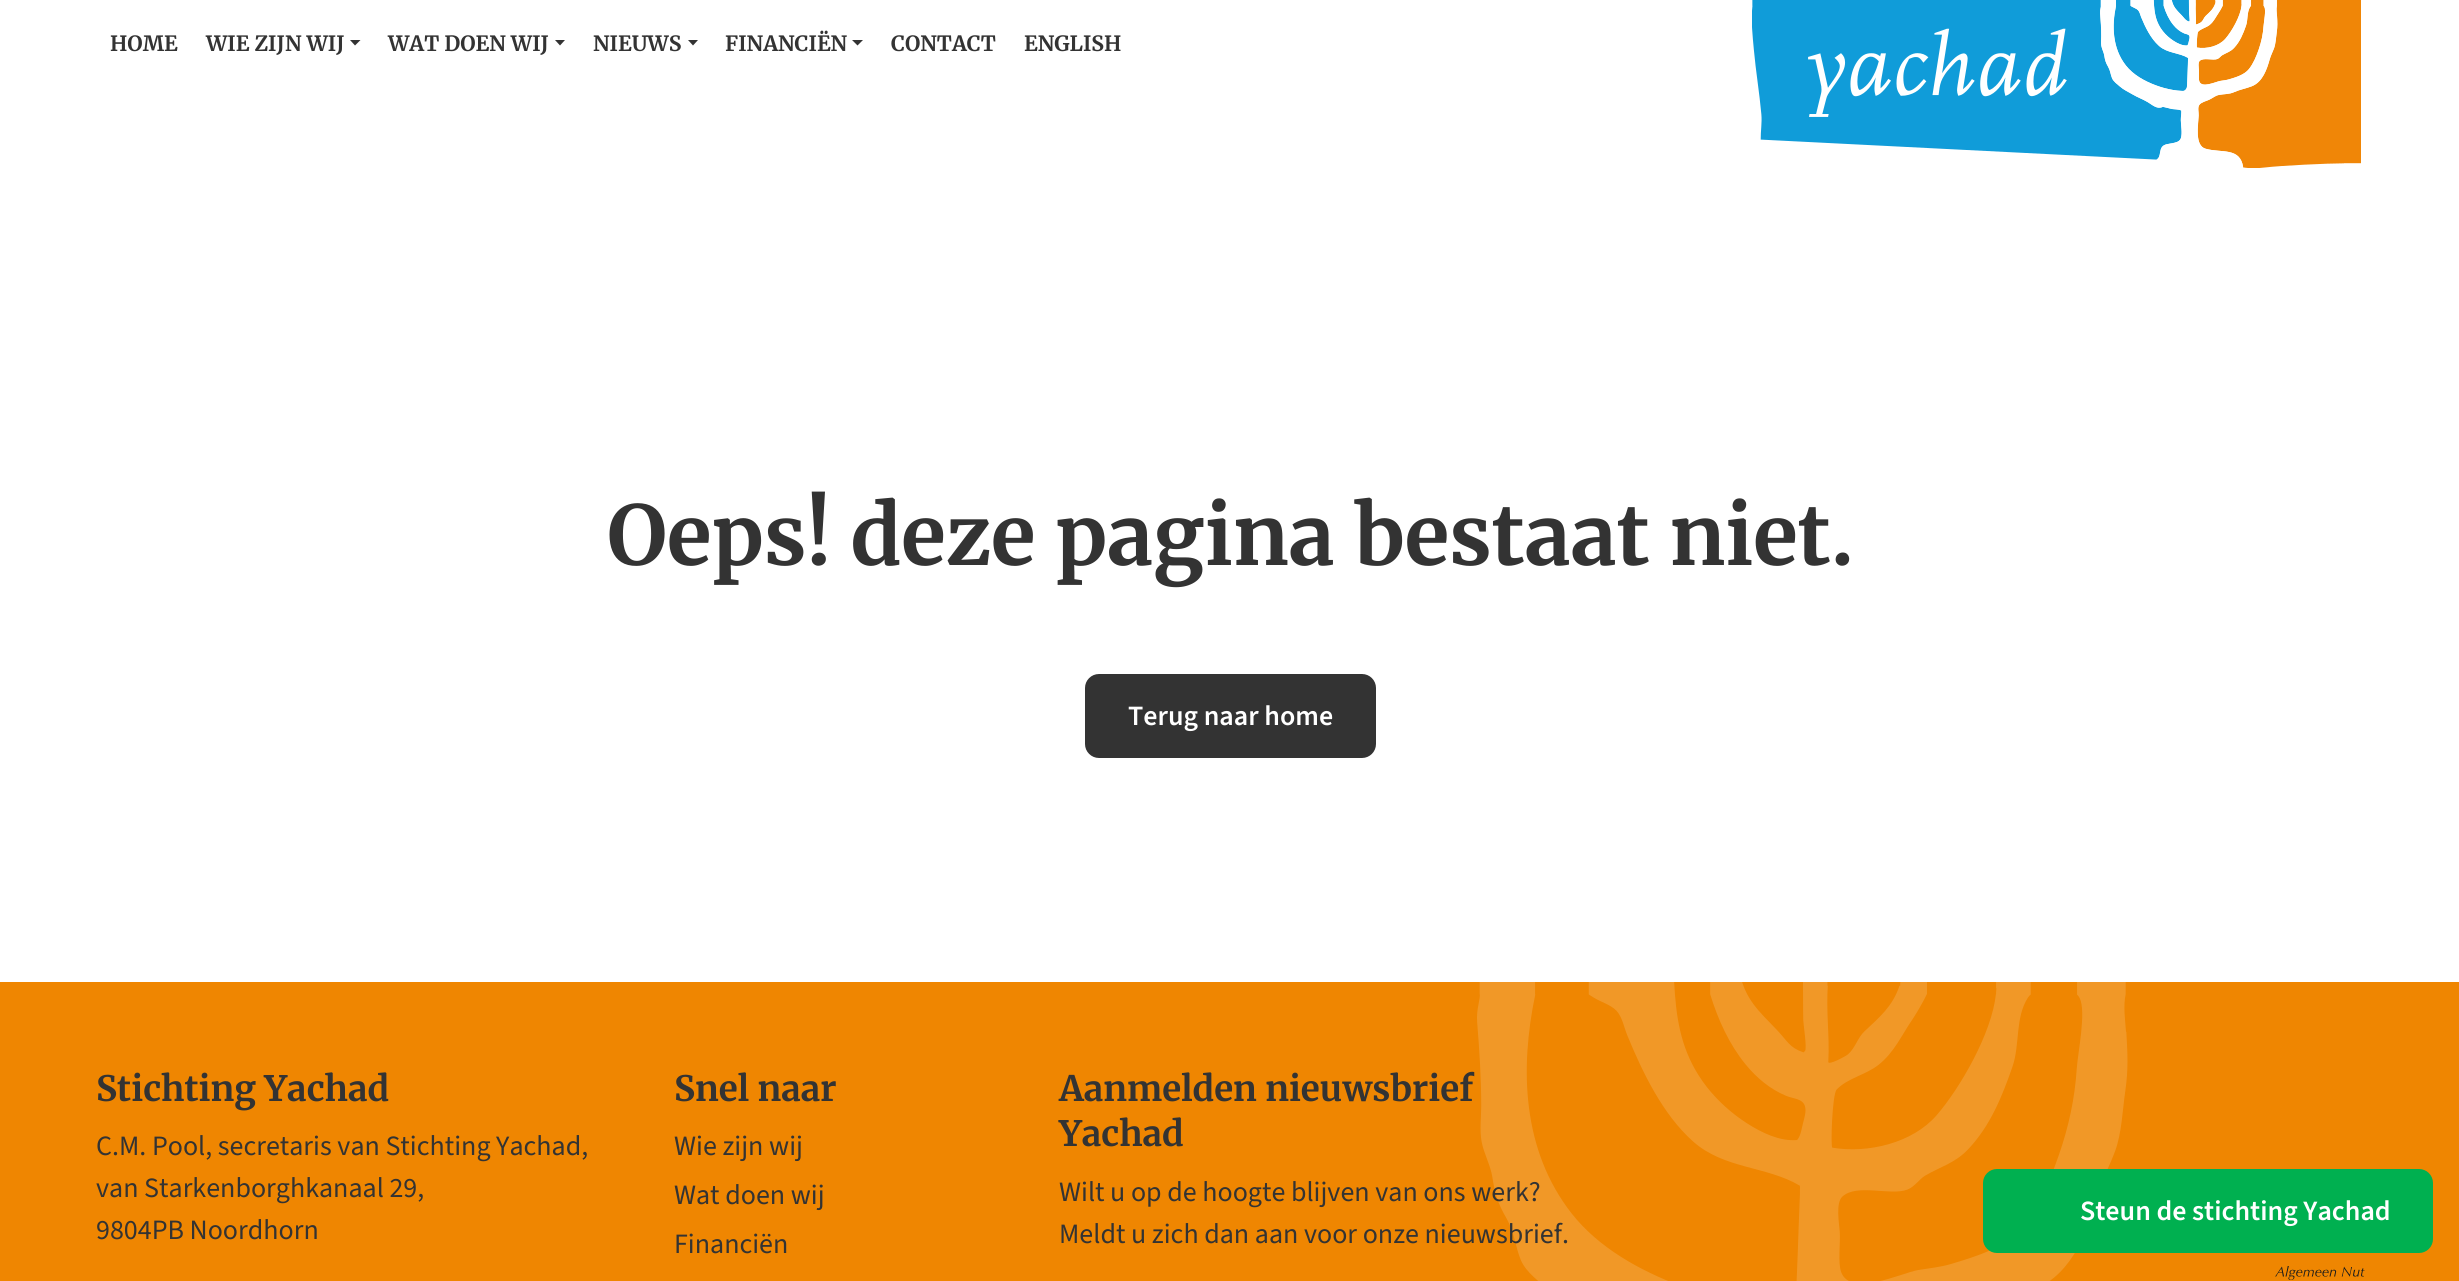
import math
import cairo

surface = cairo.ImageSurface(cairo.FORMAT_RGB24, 2459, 1281)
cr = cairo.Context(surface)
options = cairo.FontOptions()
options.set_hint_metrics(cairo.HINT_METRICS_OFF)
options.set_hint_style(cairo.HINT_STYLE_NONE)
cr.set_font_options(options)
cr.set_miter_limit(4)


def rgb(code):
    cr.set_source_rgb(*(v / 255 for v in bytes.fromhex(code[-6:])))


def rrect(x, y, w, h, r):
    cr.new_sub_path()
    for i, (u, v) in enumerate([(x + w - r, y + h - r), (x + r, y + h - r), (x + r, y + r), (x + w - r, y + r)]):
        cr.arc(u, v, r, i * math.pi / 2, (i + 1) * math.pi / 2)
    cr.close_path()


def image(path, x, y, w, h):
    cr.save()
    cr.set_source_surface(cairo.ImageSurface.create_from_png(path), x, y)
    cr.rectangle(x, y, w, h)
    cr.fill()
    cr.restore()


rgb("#ffffff")
cr.paint()
rgb("#333333")
cr.new_path()
cr.move_to(350, 40)
cr.line_to(360.5, 40)
cr.line_to(355, 45.5)
cr.close_path()
cr.fill()
cr.new_path()
cr.move_to(555, 40)
cr.line_to(565, 40)
cr.line_to(560, 45.5)
cr.close_path()
cr.fill()
cr.new_path()
cr.move_to(688, 40)
cr.line_to(698, 40)
cr.line_to(693, 45.5)
cr.close_path()
cr.fill()
cr.new_path()
cr.move_to(852, 40)
cr.line_to(863, 40)
cr.line_to(857.5, 45.5)
cr.close_path()
cr.fill()
image("img/1.png", 1752, 0, 609, 168)
rrect(1085, 674, 291, 84, 14)
cr.fill()
rgb("#ef8601")
cr.rectangle(0, 982, 2459, 299)
cr.fill()
image("img/2.png", 2275, 1266, 90, 14)
image("img/3.png", 1477, 982, 651, 299)
rgb("#00b050")
rrect(1983, 1169, 450, 84, 14)
cr.fill()
cr.select_font_face("Merriweather Light")
cr.set_font_size(21)
rgb("#333333")
for x, y, s in [
    (110, 51, "HOME"),
    (206, 51, "WIE ZIJN WIJ"),
    (388, 51, "WAT DOEN WIJ"),
    (593, 51, "NIEUWS"),
    (725, 51, "FINANCIËN"),
    (891, 51, "CONTACT"),
    (1024, 51, "ENGLISH"),
]:
    cr.move_to(x, y)
    cr.show_text(s)
cr.set_font_size(82.25)
cr.move_to(607, 565)
cr.show_text("Oeps! deze pagina bestaat niet.")
cr.select_font_face("Source Sans 3 ExtraLight")
cr.set_font_size(28)
rgb("#ffffff")
cr.move_to(1128, 725)
cr.show_text("Terug naar home")
cr.select_font_face("Merriweather Light")
cr.set_font_size(35)
rgb("#333333")
cr.move_to(96, 1101)
cr.show_text("Stichting Yachad")
cr.select_font_face("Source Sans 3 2 ExtraLight")
cr.set_font_size(28)
for x, y, s in [
    (96, 1155, "C.M. Pool, secretaris van Stichting Yachad,"),
    (96, 1197, "van Starkenborghkanaal 29,"),
    (96, 1239, "9804PB Noordhorn"),
]:
    cr.move_to(x, y)
    cr.show_text(s)
cr.select_font_face("Merriweather Light")
cr.set_font_size(35)
cr.move_to(674, 1101)
cr.show_text("Snel naar")
cr.select_font_face("Source Sans 3 2 ExtraLight")
cr.set_font_size(28)
for x, y, s in [
    (674, 1155, "Wie zijn wij"),
    (674, 1204, "Wat doen wij"),
    (674, 1253, "Financiën"),
]:
    cr.move_to(x, y)
    cr.show_text(s)
cr.select_font_face("Merriweather Light")
cr.set_font_size(35)
cr.move_to(1059, 1101)
cr.show_text("Aanmelden nieuwsbrief")
cr.move_to(1059, 1146)
cr.show_text("Yachad")
cr.select_font_face("Source Sans 3 2 ExtraLight")
cr.set_font_size(28)
cr.move_to(1059, 1201)
cr.show_text("Wilt u op de hoogte blijven van ons werk?")
cr.move_to(1059, 1243)
cr.show_text("Meldt u zich dan aan voor onze nieuwsbrief.")
cr.select_font_face("Source Sans 3 ExtraLight")
rgb("#ffffff")
cr.move_to(2080, 1220)
cr.show_text("Steun de stichting Yachad")
surface.write_to_png("page.png")
